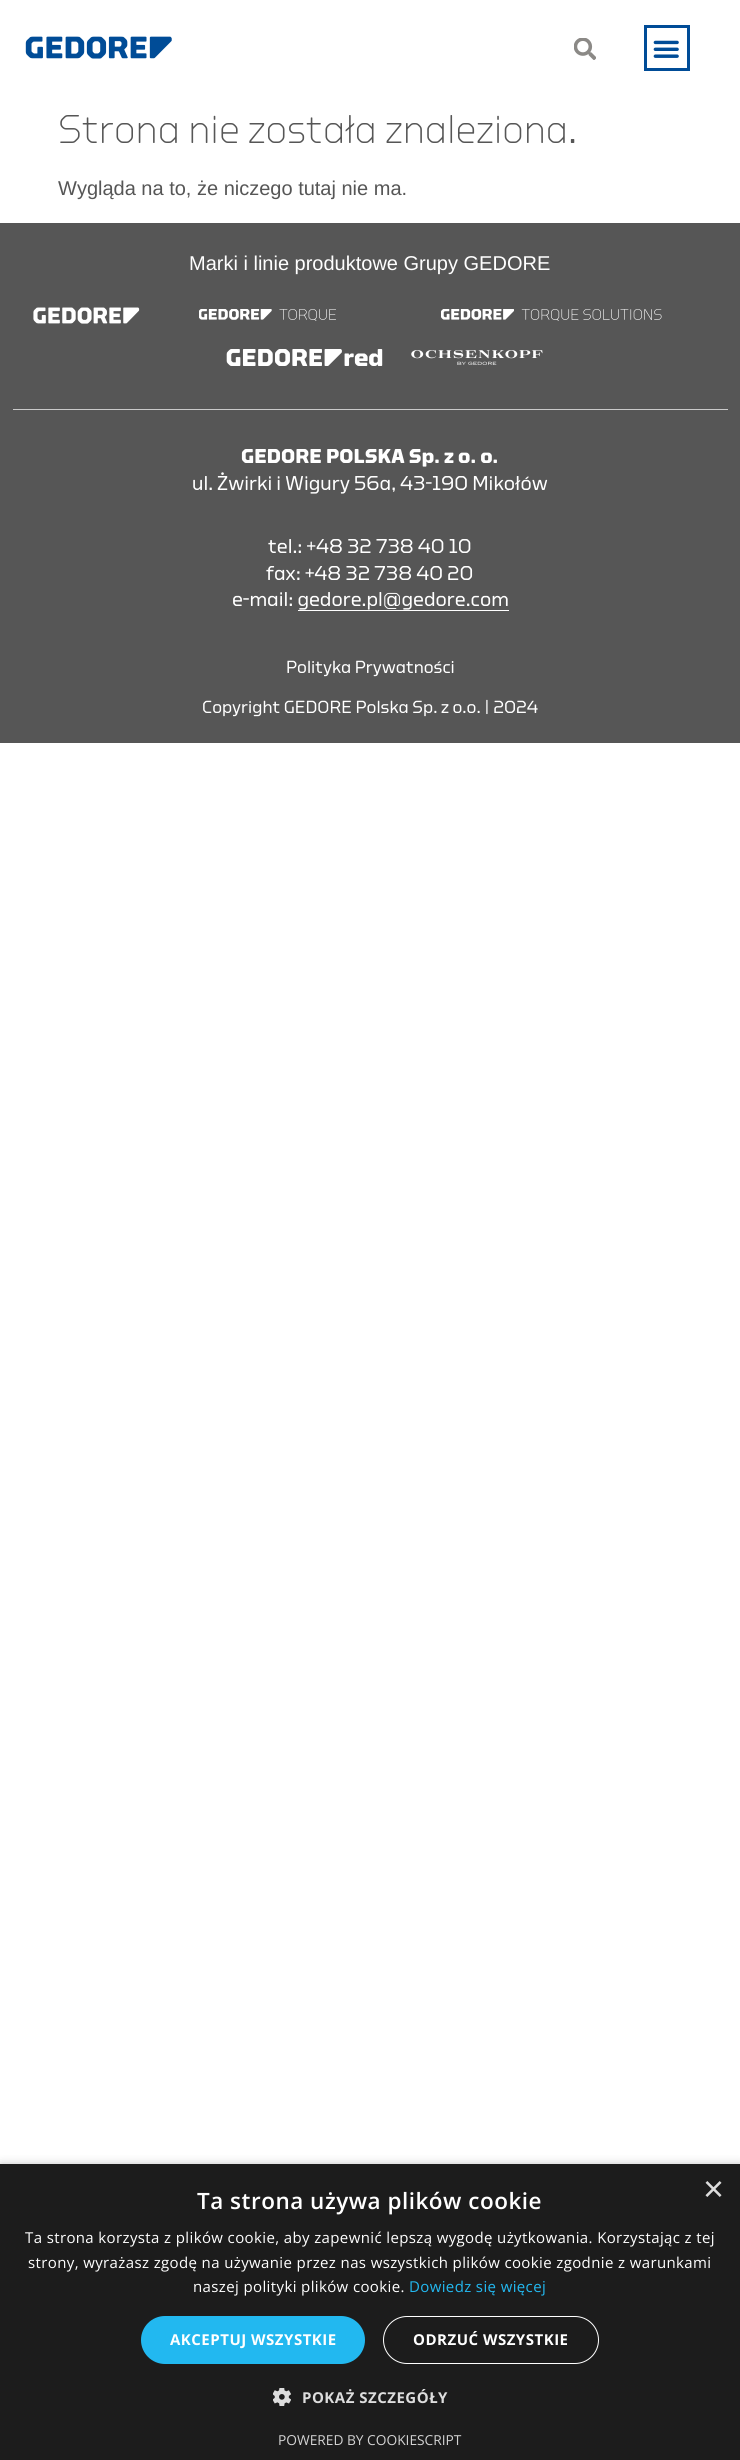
import math
import cairo

surface = cairo.ImageSurface(cairo.FORMAT_RGB24, 740, 2460)
cr = cairo.Context(surface)
options = cairo.FontOptions()
options.set_hint_metrics(cairo.HINT_METRICS_OFF)
options.set_hint_style(cairo.HINT_STYLE_NONE)
cr.set_font_options(options)
cr.set_miter_limit(4)


def rgb(code):
    cr.set_source_rgb(*(v / 255 for v in bytes.fromhex(code[-6:])))


def tracked(x, y, s, letter, word):
    cr.move_to(x, y)
    for ch in s:
        cr.show_text(ch)
        cr.rel_move_to(letter + word * (ch == ' '), 0)


def rrect(x, y, w, h, r):
    cr.new_sub_path()
    for i, (u, v) in enumerate([(x + w - r, y + h - r), (x + r, y + h - r), (x + r, y + r), (x + w - r, y + r)]):
        cr.arc(u, v, r, i * math.pi / 2, (i + 1) * math.pi / 2)
    cr.close_path()


def soft_shadow(x, y, w, h, r, blur, alpha):
    cr.push_group_with_content(cairo.CONTENT_ALPHA)
    cr.set_operator(cairo.OPERATOR_SOURCE)
    for i in range(15, -16, -2):
        e = blur * i / 6
        if min(w, h) + 2 * e > 0:
            cr.set_source_rgba(0, 0, 0, alpha * math.erfc((i - 1) / 8.5) / 2)
            rrect(x - e, y - e, w + 2 * e, h + 2 * e, max(0, min(r + e + blur * .6, min(w, h) / 2 + e)))
            cr.fill()
    cr.mask(cr.pop_group())


def image(path, x, y, w, h):
    cr.save()
    cr.set_source_surface(cairo.ImageSurface.create_from_png(path), x, y)
    cr.rectangle(x, y, w, h)
    cr.fill()
    cr.restore()


rgb("#ffffff")
cr.paint()
image("img/1.png", 25, 36, 147, 23)
image("img/2.png", 574, 38, 22, 22)
cr.rectangle(645.5, 26.5, 43, 43)
rgb("#004c97")
cr.set_line_width(3)
cr.stroke()
image("img/3.png", 653, 40, 26, 18)
rgb("#565656")
cr.rectangle(0, 223, 740, 520)
cr.fill()
rgb("#cacaca")
cr.rectangle(13, 409, 715, 1)
cr.fill()
image("img/4.png", 33, 307, 107, 17)
image("img/5.png", 199, 309, 137, 12)
image("img/6.png", 441, 309, 221, 12)
image("img/7.png", 226, 349, 157, 17)
image("img/8.png", 411, 350, 132, 15)
rgb("#ffffff")
cr.rectangle(298, 610, 211, 1)
cr.fill()
rgb("#000000")
soft_shadow(1, 2166, 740, 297, 0, 5, 0.35)
rgb("#1c1c1c")
cr.rectangle(0, 2164, 740, 296)
cr.fill()
rgb("#22b8f0")
rrect(141, 2316, 224, 48, 24)
cr.fill()
rrect(383.5, 2316.5, 215, 47, 23.5)
rgb("#ffffff")
cr.set_line_width(1)
cr.stroke()
image("img/9.png", 273, 2388, 18, 18)
cr.select_font_face("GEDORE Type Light")
cr.set_font_size(40)
rgb("#565656")
cr.move_to(58, 143)
cr.show_text("Strona nie została znaleziona.")
cr.select_font_face("Liberation Sans")
cr.set_font_size(20)
cr.move_to(58, 195)
cr.show_text("Wygląda na to, że niczego tutaj nie ma.")
rgb("#ffffff")
cr.move_to(189, 270)
cr.show_text("Marki i linie produktowe Grupy GEDORE")
cr.select_font_face("GEDORE Type", cairo.FONT_SLANT_NORMAL, cairo.FONT_WEIGHT_BOLD)
cr.move_to(241, 463)
cr.show_text("GEDORE POLSKA Sp. z o. o.")
cr.select_font_face("GEDORE Type")
for x, y, s in [
    (192, 490, "ul. Żwirki i Wigury 56a, 43-190 Mikołów"),
    (268, 553, "tel.: +48 32 738 40 10"),
    (266, 580, "fax: +48 32 738 40 20"),
    (232, 606, "e-mail: gedore.pl@gedore.com"),
]:
    cr.move_to(x, y)
    cr.show_text(s)
cr.set_font_size(17.5)
cr.move_to(286, 673)
cr.show_text("Polityka Prywatności")
cr.move_to(202, 713)
cr.show_text("Copyright GEDORE Polska Sp. z o.o. | 2024")
cr.select_font_face("Liberation Sans")
cr.set_font_size(36)
rgb("#dddddd")
cr.move_to(703, 2201)
cr.show_text("×")
cr.select_font_face("Open Sans SemiBold")
cr.set_font_size(22.5)
rgb("#ffffff")
tracked(197, 2209, "Ta strona używa plików cookie", 0.5, 0)
cr.select_font_face("Open Sans")
cr.set_font_size(15)
for x, y, s in [
    (25, 2243, "Ta strona korzysta z plików cookie, aby zapewnić lepszą wygodę użytkowania. Korzystając z tej"),
    (28, 2268, "strony, wyrażasz zgodę na używanie przez nas wszystkich plików cookie zgodnie z warunkami"),
    (193, 2292, "naszej polityki plików cookie."),
]:
    tracked(x, y, s, 0.38, 0)
rgb("#22b8f0")
tracked(409, 2292, "Dowiedz się więcej", 0.38, 0)
cr.select_font_face("Open Sans", cairo.FONT_SLANT_NORMAL, cairo.FONT_WEIGHT_BOLD)
rgb("#ffffff")
tracked(170, 2345, "AKCEPTUJ WSZYSTKIE", 0.5, 0)
tracked(413, 2345, "ODRZUĆ WSZYSTKIE", 0.5, 0)
rgb("#dddddd")
tracked(302, 2403, "POKAŻ SZCZEGÓŁY", 0.5, 0)
cr.select_font_face("Open Sans")
cr.set_font_size(13.75)
rgb("#d2d2d2")
cr.move_to(278, 2445)
cr.show_text("POWERED BY COOKIESCRIPT")
surface.write_to_png("page.png")
